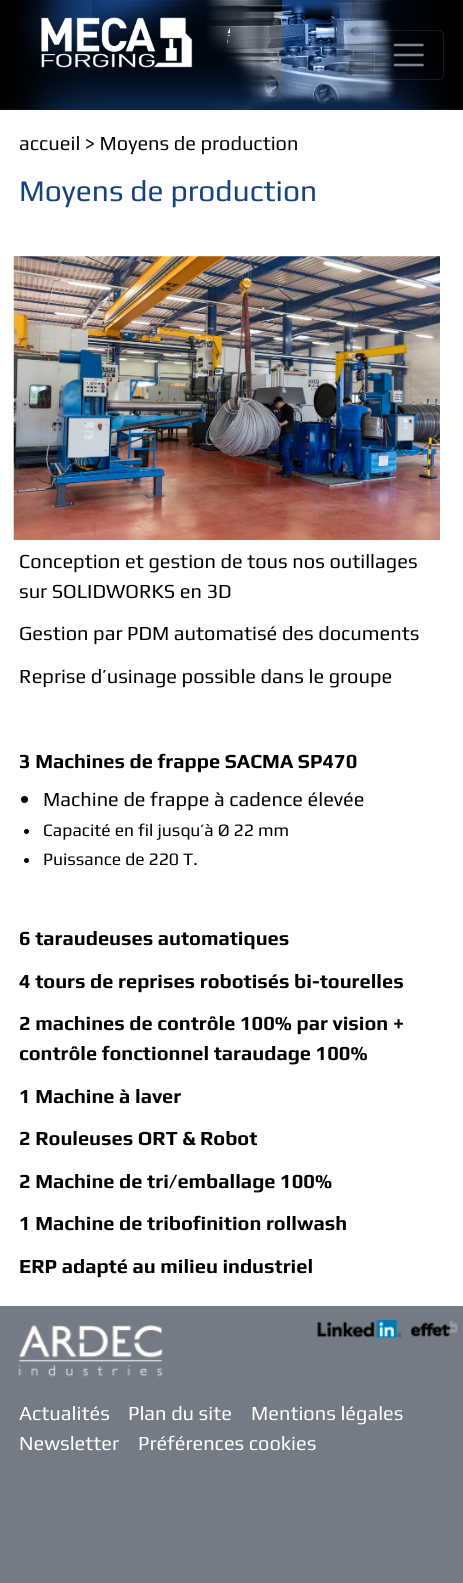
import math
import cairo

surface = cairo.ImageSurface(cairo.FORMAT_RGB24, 463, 1583)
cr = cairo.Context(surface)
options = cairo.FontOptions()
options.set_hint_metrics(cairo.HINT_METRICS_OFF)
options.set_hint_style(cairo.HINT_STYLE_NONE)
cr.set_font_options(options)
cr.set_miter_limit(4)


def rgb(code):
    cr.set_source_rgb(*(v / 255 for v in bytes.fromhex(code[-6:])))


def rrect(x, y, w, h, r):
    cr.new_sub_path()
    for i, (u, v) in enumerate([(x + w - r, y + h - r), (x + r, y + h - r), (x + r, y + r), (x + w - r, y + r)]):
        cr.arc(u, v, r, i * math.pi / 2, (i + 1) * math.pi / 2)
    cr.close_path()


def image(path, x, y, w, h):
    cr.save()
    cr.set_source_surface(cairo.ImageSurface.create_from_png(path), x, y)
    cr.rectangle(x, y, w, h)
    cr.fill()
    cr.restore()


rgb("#757b84")
cr.paint()
image("img/1.png", 0, 0, 463, 110)
image("img/2.png", 41, 17, 189, 51)
rrect(374.5, 30.5, 69, 49, 4.5)
cr.set_source_rgba(1, 1, 1, 0.1)
cr.set_line_width(1)
cr.stroke()
cr.new_path()
cr.move_to(395, 45)
cr.line_to(422.5, 45)
cr.move_to(395, 55)
cr.line_to(422.5, 55)
cr.move_to(395, 65)
cr.line_to(422.5, 65)
cr.set_source_rgba(1, 1, 1, 0.5)
cr.set_line_width(2.5)
cr.set_line_cap(cairo.LINE_CAP_ROUND)
cr.stroke()
rgb("#ffffff")
cr.rectangle(0, 110, 463, 1196)
cr.fill()
image("img/3.png", 13, 256, 427, 284)
rgb("#000000")
cr.arc(24.5, 799.5, 3.5, 0, 2 * math.pi)
cr.fill()
cr.arc(26.5, 831.5, 2.5, 0, 2 * math.pi)
cr.fill()
cr.arc(26.5, 860.5, 2.5, 0, 2 * math.pi)
cr.fill()
image("img/4.png", 18, 1325, 145, 52)
image("img/5.png", 317, 1319, 85, 19)
image("img/6.png", 411, 1321, 47, 16)
cr.select_font_face("Play")
cr.set_font_size(20)
rgb("#05060f")
cr.move_to(19, 150)
cr.show_text("accueil")
cr.move_to(85, 150)
cr.show_text("> Moyens de production")
cr.set_font_size(30)
rgb("#16427f")
cr.move_to(19, 201)
cr.show_text("Moyens de production")
cr.set_font_size(20)
rgb("#000000")
for x, y, s in [
    (19, 568, "Conception et gestion de tous nos outillages"),
    (19, 598, "sur SOLIDWORKS en 3D"),
    (19, 640, "Gestion par PDM automatisé des documents"),
    (19, 683, "Reprise d’usinage possible dans le groupe"),
]:
    cr.move_to(x, y)
    cr.show_text(s)
cr.select_font_face("Play", cairo.FONT_SLANT_NORMAL, cairo.FONT_WEIGHT_BOLD)
cr.move_to(19, 768)
cr.show_text("3 Machines de frappe SACMA SP470")
cr.select_font_face("Play")
cr.move_to(43, 806)
cr.show_text("Machine de frappe à cadence élevée")
cr.set_font_size(17.5)
cr.move_to(43, 836)
cr.show_text("Capacité en fil jusqu’à Ø 22 mm")
cr.move_to(43, 865)
cr.show_text("Puissance de 220 T.")
cr.select_font_face("Play", cairo.FONT_SLANT_NORMAL, cairo.FONT_WEIGHT_BOLD)
cr.set_font_size(20)
for x, y, s in [
    (19, 945, "6 taraudeuses automatiques"),
    (19, 988, "4 tours de reprises robotisés bi-tourelles"),
    (19, 1030, "2 machines de contrôle 100% par vision +"),
    (19, 1060, "contrôle fonctionnel taraudage 100%"),
    (19, 1103, "1 Machine à laver"),
    (19, 1145, "2 Rouleuses ORT & Robot"),
    (19, 1188, "2 Machine de tri/emballage 100%"),
    (19, 1230, "1 Machine de tribofinition rollwash"),
    (19, 1273, "ERP adapté au milieu industriel"),
]:
    cr.move_to(x, y)
    cr.show_text(s)
cr.select_font_face("Play")
rgb("#ffffff")
for x, y, s in [
    (19, 1420, "Actualités"),
    (128, 1420, "Plan du site"),
    (251, 1420, "Mentions légales"),
    (19, 1450, "Newsletter"),
    (138, 1450, "Préférences cookies"),
]:
    cr.move_to(x, y)
    cr.show_text(s)
surface.write_to_png("page.png")
